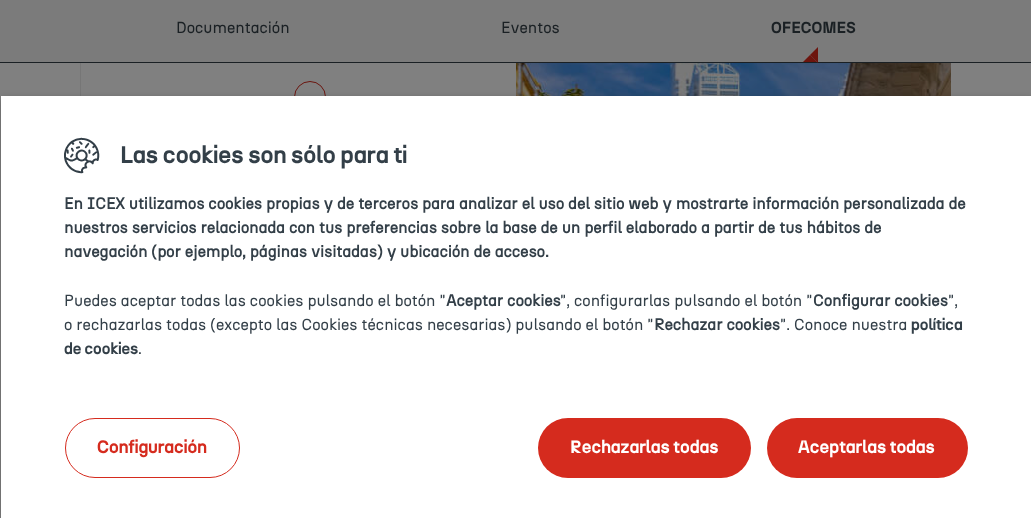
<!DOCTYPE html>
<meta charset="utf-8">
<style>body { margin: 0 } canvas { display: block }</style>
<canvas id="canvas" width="1031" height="518"></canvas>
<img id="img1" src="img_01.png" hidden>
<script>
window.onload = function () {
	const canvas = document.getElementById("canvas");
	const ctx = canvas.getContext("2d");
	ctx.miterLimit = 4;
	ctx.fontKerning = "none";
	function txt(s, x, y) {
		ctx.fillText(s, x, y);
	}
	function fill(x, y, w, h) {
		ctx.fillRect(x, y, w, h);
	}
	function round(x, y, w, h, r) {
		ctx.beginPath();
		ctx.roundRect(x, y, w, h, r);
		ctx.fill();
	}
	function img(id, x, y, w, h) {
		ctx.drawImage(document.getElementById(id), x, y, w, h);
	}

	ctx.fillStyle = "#808080";
	fill(0, 0, 1031, 518);
	ctx.fillStyle = "#7B7B7B";
	fill(0, 0, 1031, 62);
	ctx.fillStyle = "#1A2024";
	fill(0, 62, 1031, 1);
	ctx.fillStyle = "#6D150E";
	ctx.beginPath();
	ctx.moveTo(818, 47);
	ctx.lineTo(818, 63);
	ctx.lineTo(810, 55);
	ctx.closePath();
	ctx.fill();
	ctx.save();
	ctx.beginPath();
	ctx.rect(0, 0, 1031, 62);
	ctx.clip();
	ctx.beginPath();
	ctx.moveTo(818, 63);
	ctx.lineTo(802, 63);
	ctx.lineTo(810, 55);
	ctx.closePath();
	ctx.fill();
	ctx.restore();
	ctx.fillStyle = "#767676";
	fill(80, 63, 1, 33);
	ctx.beginPath();
	ctx.arc(310, 97, 15.5, 0, Math.PI * 2);
	ctx.strokeStyle = "#6B160F";
	ctx.stroke();
	img("img1", 516, 63, 435, 33);
	ctx.fillStyle = "rgba(0, 0, 0, 0.25)";
	ctx.filter = "blur(4px)";
	ctx.beginPath();
	ctx.rect(1, 99, 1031, 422);
	ctx.fill();
	ctx.filter = "none";
	ctx.fillStyle = "#FFFFFF";
	fill(1, 96, 1030, 422);
	ctx.beginPath();
	ctx.roundRect(65.5, 418.5, 174, 59, 29.5);
	ctx.strokeStyle = "#D52B1E";
	ctx.stroke();
	ctx.fillStyle = "#D52B1E";
	round(538, 418, 213, 60, 30);
	round(767, 418, 201, 60, 30);
	ctx.font = "16px 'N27'";
	ctx.fillStyle = "#1A2024";
	txt("Documentación", 176, 33);
	txt("Eventos", 501, 33);
	ctx.font = "bold 16px 'N27'";
	txt("OFECOMES", 771, 33);
	ctx.font = "40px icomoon";
	ctx.fillStyle = "#333F48";
	txt("󮦈", 64, 173);
	ctx.font = "bold 24px 'N27'";
	txt("Las cookies son sólo para ti", 120, 163);
	ctx.font = "bold 16px 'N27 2'";
	txt("En ICEX utilizamos cookies propias y de terceros para analizar el uso del sitio web y mostrarte información personalizada de", 64, 209);
	txt("nuestros servicios relacionada con tus preferencias sobre la base de un perfil elaborado a partir de tus hábitos de", 64, 233);
	txt("navegación (por ejemplo, páginas visitadas) y ubicación de acceso.", 64, 257);
	ctx.font = "16px 'N27'";
	txt("Puedes aceptar todas las cookies pulsando el botón \"", 64, 306);
	ctx.font = "bold 16px 'N27 2'";
	txt("Aceptar cookies", 446, 306);
	ctx.font = "16px 'N27'";
	txt("\", configurarlas pulsando el botón \"", 560, 306);
	ctx.font = "bold 16px 'N27 2'";
	txt("Configurar cookies", 813, 306);
	ctx.font = "16px 'N27'";
	txt("\",", 948, 306);
	txt("o rechazarlas todas (excepto las Cookies técnicas necesarias) pulsando el botón \"", 64, 330);
	ctx.font = "bold 16px 'N27 2'";
	txt("Rechazar cookies", 654, 330);
	ctx.font = "16px 'N27'";
	txt("\". Conoce nuestra", 780, 330);
	ctx.font = "bold 16px 'N27'";
	txt("política", 911, 330);
	txt("de cookies", 64, 354);
	ctx.font = "16px 'N27'";
	txt(".", 138, 354);
	ctx.font = "bold 18px 'N27'";
	ctx.fillStyle = "#D52B1E";
	txt("Configuración", 97, 453);
	ctx.fillStyle = "#FFFFFF";
	txt("Rechazarlas todas", 570, 453);
	txt("Aceptarlas todas", 798, 453);
};
</script>
